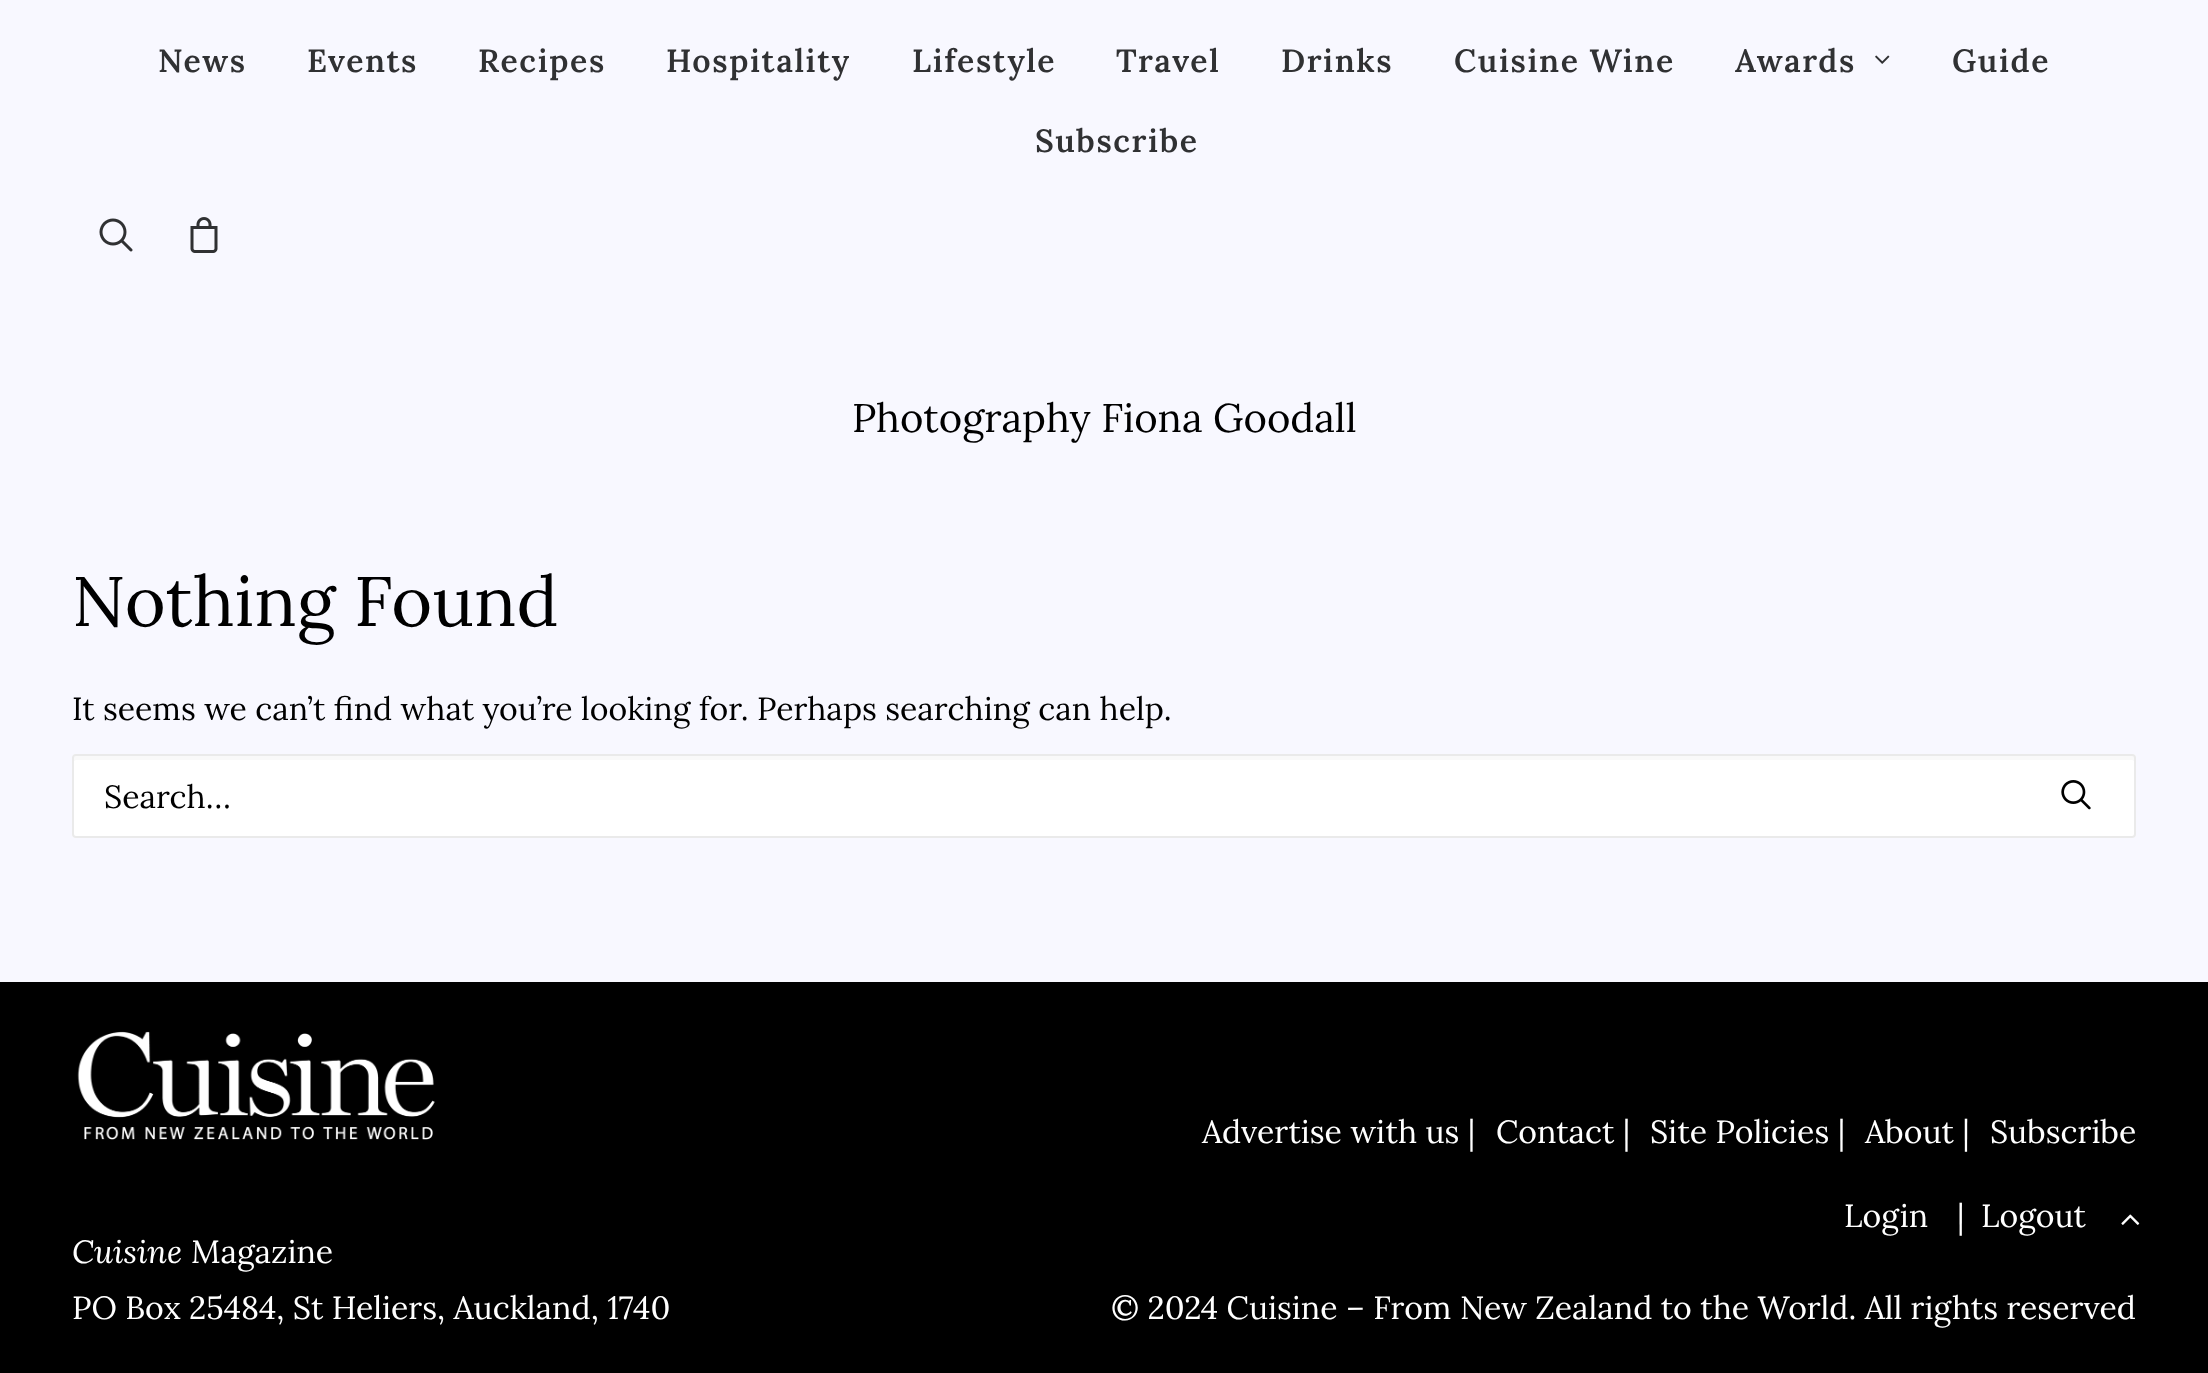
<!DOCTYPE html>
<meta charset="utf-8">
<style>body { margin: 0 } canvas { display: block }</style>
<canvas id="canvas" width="2208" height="1373"></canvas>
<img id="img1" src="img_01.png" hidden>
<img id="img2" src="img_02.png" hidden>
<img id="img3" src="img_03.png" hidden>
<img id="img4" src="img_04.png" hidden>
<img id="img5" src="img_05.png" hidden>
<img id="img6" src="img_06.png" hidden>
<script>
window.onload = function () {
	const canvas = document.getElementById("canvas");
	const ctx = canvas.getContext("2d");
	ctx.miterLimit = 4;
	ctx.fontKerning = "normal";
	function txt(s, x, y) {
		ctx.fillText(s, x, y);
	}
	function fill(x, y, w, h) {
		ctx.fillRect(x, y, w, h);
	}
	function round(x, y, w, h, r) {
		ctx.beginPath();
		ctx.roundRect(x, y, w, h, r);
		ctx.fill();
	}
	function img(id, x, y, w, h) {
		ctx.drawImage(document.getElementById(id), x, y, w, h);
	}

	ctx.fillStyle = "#F8F8FF";
	fill(0, 0, 2208, 1373);
	img("img1", 1875, 55, 15, 9);
	img("img2", 99, 218, 34, 34);
	img("img3", 190, 217, 28, 36);
	ctx.fillStyle = "#FFFFFF";
	round(72, 754, 2064, 84, 4);
	ctx.fillStyle = "#F9F9F9";
	ctx.beginPath();
	ctx.moveTo(76, 760);
	ctx.lineTo(2132, 760);
	ctx.bezierCurveTo(2133, 760, 2134, 761, 2134, 762);
	ctx.lineTo(2134, 758);
	ctx.bezierCurveTo(2134, 757, 2133, 756, 2132, 756);
	ctx.lineTo(76, 756);
	ctx.bezierCurveTo(75, 756, 74, 757, 74, 758);
	ctx.lineTo(74, 762);
	ctx.bezierCurveTo(74, 761, 75, 760, 76, 760);
	ctx.closePath();
	ctx.fill();
	ctx.beginPath();
	ctx.roundRect(73, 755, 2062, 82, 3);
	ctx.strokeStyle = "#EAEAEA";
	ctx.lineWidth = 2;
	ctx.stroke();
	img("img4", 2061, 780, 30, 30);
	ctx.fillStyle = "#000000";
	fill(0, 982, 2208, 391);
	img("img5", 77, 1031, 358, 109);
	img("img6", 2121, 1214, 19, 11);
	ctx.letterSpacing = "1.6px";
	ctx.font = "600 32px Lora";
	ctx.fillStyle = "#303133";
	txt("News", 158, 72);
	txt("Events", 307, 72);
	txt("Recipes", 478, 72);
	txt("Hospitality", 666, 72);
	txt("Lifestyle", 912, 72);
	txt("Travel", 1116, 72);
	txt("Drinks", 1281, 72);
	txt("Cuisine Wine", 1454, 72);
	txt("Awards", 1735, 72);
	txt("Guide", 1952, 72);
	txt("Subscribe", 1035, 152);
	ctx.letterSpacing = "0px";
	ctx.font = "40px Lora";
	ctx.fillStyle = "#000000";
	txt("Photography Fiona Goodall", 852, 432);
	ctx.font = "70px Lora";
	txt("Nothing Found", 72, 626);
	ctx.font = "32px Lora";
	txt("It seems we can’t find what you’re looking for. Perhaps searching can help.", 72, 720);
	txt("Search…", 104, 808);
	ctx.font = "italic 32px Lora";
	ctx.fillStyle = "#FFFFFF";
	txt("Cuisine", 72, 1263);
	ctx.font = "32px Lora";
	txt("Magazine", 191, 1263);
	txt("PO Box 25484, St Heliers, Auckland, 1740", 72, 1319);
	txt("Advertise with us |", 1202, 1143);
	txt("Contact |", 1496, 1143);
	txt("Site Policies |", 1650, 1143);
	txt("About |", 1865, 1143);
	txt("Subscribe", 1990, 1143);
	txt("Login", 1844, 1227);
	txt("|", 1957, 1227);
	txt("Logout", 1981, 1227);
	txt("© 2024 Cuisine – From New Zealand to the World. All rights reserved", 1111, 1319);
};
</script>
